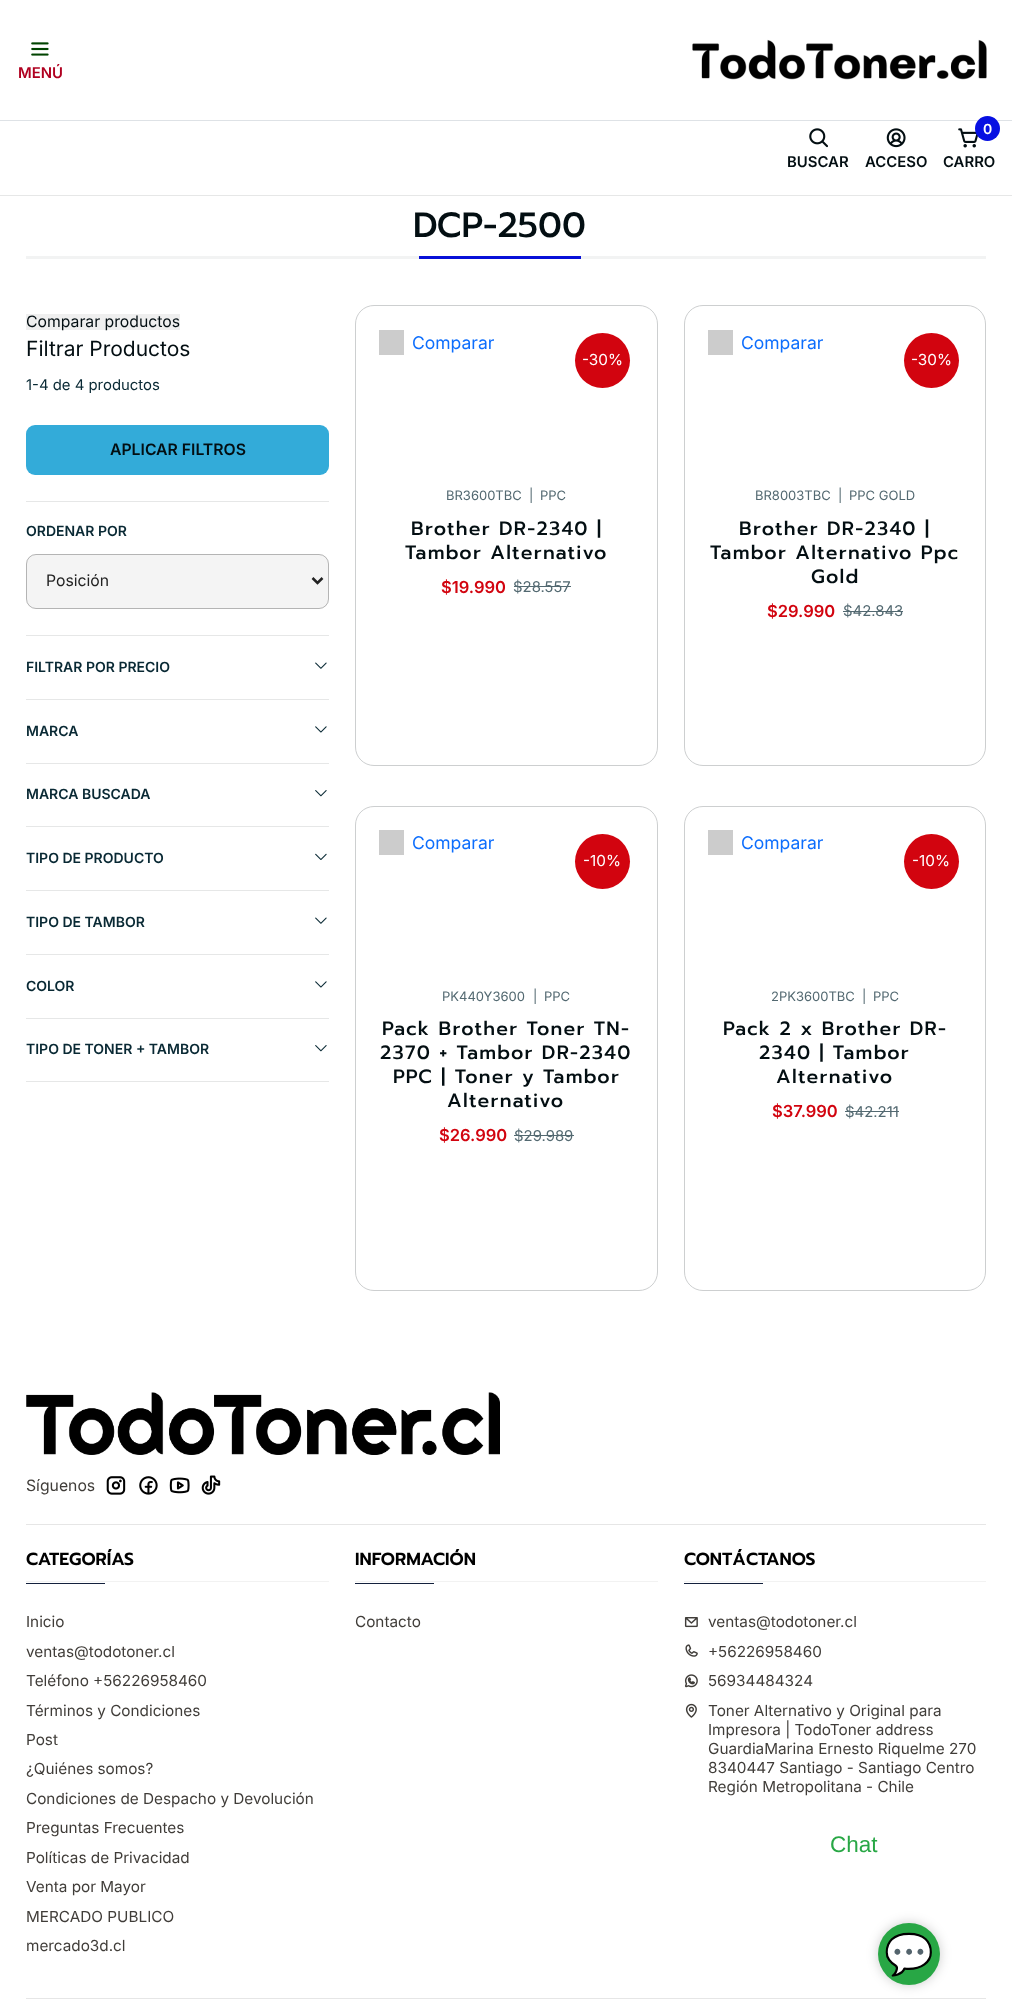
<!DOCTYPE html>
<meta charset="utf-8">
<style>body { margin: 0 } canvas { display: block }</style>
<canvas id="canvas" width="1012" height="2009"></canvas>
<img id="img1" src="img_01.png" hidden>
<img id="img2" src="img_02.png" hidden>
<img id="img3" src="img_03.png" hidden>
<img id="img4" src="img_04.png" hidden>
<img id="img5" src="img_05.png" hidden>
<img id="img6" src="img_06.png" hidden>
<img id="img7" src="img_07.png" hidden>
<img id="img8" src="img_08.png" hidden>
<img id="img9" src="img_09.png" hidden>
<img id="img10" src="img_10.png" hidden>
<img id="img11" src="img_11.png" hidden>
<img id="img12" src="img_12.png" hidden>
<img id="img13" src="img_13.png" hidden>
<img id="img14" src="img_14.png" hidden>
<img id="img15" src="img_15.png" hidden>
<img id="img16" src="img_16.png" hidden>
<img id="img17" src="img_17.png" hidden>
<img id="img18" src="img_18.png" hidden>
<script>
window.onload = function () {
	const canvas = document.getElementById("canvas");
	const ctx = canvas.getContext("2d");
	ctx.miterLimit = 4;
	ctx.fontKerning = "normal";
	function txt(s, x, y) {
		ctx.fillText(s, x, y);
	}
	function fill(x, y, w, h) {
		ctx.fillRect(x, y, w, h);
	}
	function round(x, y, w, h, r) {
		ctx.beginPath();
		ctx.roundRect(x, y, w, h, r);
		ctx.fill();
	}
	function img(id, x, y, w, h) {
		ctx.drawImage(document.getElementById(id), x, y, w, h);
	}

	ctx.fillStyle = "#FFFFFF";
	fill(0, 0, 1012, 2009);
	ctx.fillStyle = "#F2F3F3";
	fill(26, 256, 960, 3);
	ctx.fillStyle = "#E6E7E7";
	fill(0, 195, 1012, 1);
	img("img1", 31, 42, 18, 14);
	img("img2", 692, 39, 295, 41);
	ctx.fillStyle = "#DEE2E6";
	fill(0, 120, 1012, 1);
	img("img3", 809, 128, 19, 20);
	img("img4", 886, 128, 20, 20);
	img("img5", 958, 128, 20, 20);
	ctx.fillStyle = "#0710E2";
	ctx.beginPath();
	ctx.arc(987.5, 128.5, 12.5, 0, Math.PI * 2);
	ctx.fill();
	ctx.fillStyle = "#0710D8";
	fill(419, 256, 162, 3);
	ctx.fillStyle = "#EFEFEF";
	fill(26, 314, 154, 16);
	ctx.fillStyle = "#33ABD9";
	round(26, 425, 303, 50, 9);
	ctx.fillStyle = "#E6E7E7";
	fill(26, 501, 303, 1);
	ctx.fillStyle = "#F4F4F4";
	round(26, 554, 303, 55, 10);
	ctx.beginPath();
	ctx.roundRect(26.5, 554.5, 302, 54, 9.5);
	ctx.strokeStyle = "rgba(34, 34, 34, 0.3)";
	ctx.stroke();
	ctx.beginPath();
	ctx.moveTo(312.5, 578);
	ctx.lineTo(317.5, 583);
	ctx.lineTo(322.5, 578);
	ctx.strokeStyle = "#222222";
	ctx.lineWidth = 2.5;
	ctx.stroke();
	ctx.fillStyle = "#E6E7E7";
	fill(26, 635, 303, 1);
	img("img6", 315, 662, 12, 7);
	fill(26, 699, 303, 1);
	img("img7", 315, 726, 12, 7);
	fill(26, 763, 303, 1);
	img("img8", 315, 790, 12, 7);
	fill(26, 826, 303, 1);
	img("img9", 315, 853, 12, 7);
	fill(26, 890, 303, 1);
	img("img6", 315, 917, 12, 7);
	fill(26, 954, 303, 1);
	img("img7", 315, 981, 12, 7);
	fill(26, 1018, 303, 1);
	fill(26, 1081, 303, 1);
	img("img8", 315, 1045, 12, 7);
	ctx.beginPath();
	ctx.roundRect(355.5, 305.5, 302, 460, 18.5);
	ctx.strokeStyle = "#CDCFD0";
	ctx.lineWidth = 1;
	ctx.stroke();
	ctx.fillStyle = "#CCCCCC";
	fill(379, 330, 25, 25);
	ctx.fillStyle = "#D2040F";
	ctx.beginPath();
	ctx.arc(602.5, 360.5, 27.5, 0, Math.PI * 2);
	ctx.fill();
	ctx.fillStyle = "#536971";
	fill(514, 586, 57, 1);
	ctx.beginPath();
	ctx.roundRect(684.5, 305.5, 301, 460, 18.5);
	ctx.stroke();
	ctx.fillStyle = "#CCCCCC";
	fill(708, 330, 25, 25);
	ctx.fillStyle = "#D2040F";
	ctx.beginPath();
	ctx.arc(931.5, 360.5, 27.5, 0, Math.PI * 2);
	ctx.fill();
	ctx.fillStyle = "#536971";
	fill(843, 611, 60, 1);
	ctx.beginPath();
	ctx.roundRect(355.5, 806.5, 302, 484, 18.5);
	ctx.stroke();
	ctx.fillStyle = "#CCCCCC";
	fill(379, 830, 25, 25);
	ctx.fillStyle = "#D2040F";
	ctx.beginPath();
	ctx.arc(602.5, 861.5, 27.5, 0, Math.PI * 2);
	ctx.fill();
	ctx.fillStyle = "#536971";
	fill(514, 1135, 60, 1);
	ctx.beginPath();
	ctx.roundRect(684.5, 806.5, 301, 484, 18.5);
	ctx.stroke();
	ctx.fillStyle = "#CCCCCC";
	fill(708, 830, 25, 25);
	ctx.fillStyle = "#D2040F";
	ctx.beginPath();
	ctx.arc(931.5, 861.5, 27.5, 0, Math.PI * 2);
	ctx.fill();
	ctx.fillStyle = "#536971";
	fill(845, 1111, 54, 1);
	img("img10", 26, 1392, 474, 63);
	img("img11", 106, 1476, 20, 19);
	img("img12", 139, 1476, 19, 19);
	img("img13", 169, 1477, 21, 17);
	img("img14", 201, 1475, 20, 20);
	ctx.fillStyle = "#E6E6E6";
	fill(26, 1524, 960, 1);
	ctx.fillStyle = "#F2F2F2";
	fill(26, 1581, 303, 1);
	ctx.fillStyle = "#14213D";
	fill(26, 1583, 79, 1);
	ctx.fillStyle = "#F2F2F2";
	fill(355, 1581, 303, 1);
	ctx.fillStyle = "#14213D";
	fill(355, 1583, 79, 1);
	ctx.fillStyle = "#F2F2F2";
	fill(684, 1581, 302, 1);
	ctx.fillStyle = "#14213D";
	fill(684, 1583, 79, 1);
	img("img15", 684, 1617, 14, 11);
	img("img16", 685, 1644, 13, 13);
	img("img17", 684, 1674, 14, 14);
	img("img18", 685, 1703, 12, 15);
	ctx.fillStyle = "#E6E6E6";
	fill(26, 1998, 960, 1);
	ctx.fillStyle = "rgba(0, 0, 0, 0.2)";
	ctx.filter = "blur(6px)";
	ctx.beginPath();
	ctx.roundRect(878, 1923, 62, 62, 31);
	ctx.fill();
	ctx.filter = "none";
	ctx.fillStyle = "#28A745";
	ctx.beginPath();
	ctx.arc(909, 1954, 31, 0, Math.PI * 2);
	ctx.fill();
	ctx.font = "600 14.9px Inter";
	ctx.fillStyle = "#B00020";
	txt("MENÚ", 18, 78);
	ctx.fillStyle = "#030E12";
	txt("BUSCAR", 787, 167);
	txt("ACCESO", 865, 167);
	ctx.font = "600 14px Inter";
	ctx.fillStyle = "#FFFFFF";
	txt("0", 983, 134);
	ctx.font = "600 14.9px Inter";
	ctx.fillStyle = "#030E12";
	txt("CARRO", 943, 167);
	ctx.font = "500 35px Prompt";
	txt("DCP-2500", 413, 237);
	ctx.font = "15.75px Inter";
	txt("Comparar productos", 26, 327);
	ctx.font = "21px Inter";
	txt("Filtrar Productos", 26, 356);
	ctx.font = "14.9px Inter";
	ctx.fillStyle = "#092934";
	txt("1-4 de 4 productos", 26, 390);
	ctx.font = "600 15.75px Inter";
	ctx.fillStyle = "#030E12";
	txt("APLICAR FILTROS", 110, 455);
	ctx.font = "600 14px Inter";
	ctx.fillStyle = "#092934";
	txt("ORDENAR POR", 26, 536);
	ctx.font = "15.75px Inter";
	ctx.fillStyle = "#222222";
	txt("Posición", 46, 586);
	ctx.font = "600 14px Inter";
	ctx.fillStyle = "#092934";
	txt("FILTRAR POR PRECIO", 26, 672);
	txt("MARCA", 26, 736);
	txt("MARCA BUSCADA", 26, 799);
	txt("TIPO DE PRODUCTO", 26, 863);
	txt("TIPO DE TAMBOR", 26, 927);
	txt("COLOR", 26, 991);
	txt("TIPO DE TONER + TAMBOR", 26, 1054);
	ctx.font = "17.5px Inter";
	ctx.fillStyle = "#0D6EFD";
	txt("Comparar", 412, 349);
	ctx.font = "15.3px Inter";
	ctx.fillStyle = "#FFFFFF";
	txt("-30%", 582, 365);
	ctx.font = "13px Inter";
	ctx.fillStyle = "#536971";
	txt("BR3600TBC", 446, 500);
	txt("|", 529, 500);
	txt("PPC", 540, 500);
	ctx.letterSpacing = "1.25px";
	ctx.font = "500 19.25px Prompt";
	ctx.fillStyle = "#030E12";
	txt("Brother DR-2340 |", 411, 535);
	txt("Tambor Alternativo", 405, 559);
	ctx.letterSpacing = "0px";
	ctx.font = "600 16.5px Inter";
	ctx.fillStyle = "#D2040F";
	txt("$19.990", 441, 593);
	ctx.font = "14.9px Inter";
	ctx.fillStyle = "#536971";
	txt("$28.557", 513, 592);
	ctx.font = "17.5px Inter";
	ctx.fillStyle = "#0D6EFD";
	txt("Comparar", 741, 349);
	ctx.font = "15.3px Inter";
	ctx.fillStyle = "#FFFFFF";
	txt("-30%", 911, 365);
	ctx.font = "13px Inter";
	ctx.fillStyle = "#536971";
	txt("BR8003TBC", 755, 500);
	txt("|", 838, 500);
	txt("PPC GOLD", 849, 500);
	ctx.letterSpacing = "1.25px";
	ctx.font = "500 19.25px Prompt";
	ctx.fillStyle = "#030E12";
	txt("Brother DR-2340 |", 739, 535);
	txt("Tambor Alternativo Ppc", 710, 559);
	txt("Gold", 811, 583);
	ctx.letterSpacing = "0px";
	ctx.font = "600 16.5px Inter";
	ctx.fillStyle = "#D2040F";
	txt("$29.990", 767, 617);
	ctx.font = "14.9px Inter";
	ctx.fillStyle = "#536971";
	txt("$42.843", 843, 616);
	ctx.font = "17.5px Inter";
	ctx.fillStyle = "#0D6EFD";
	txt("Comparar", 412, 849);
	ctx.font = "15.3px Inter";
	ctx.fillStyle = "#FFFFFF";
	txt("-10%", 583, 866);
	ctx.font = "13px Inter";
	ctx.fillStyle = "#536971";
	txt("PK440Y3600", 442, 1001);
	txt("|", 533, 1001);
	txt("PPC", 544, 1001);
	ctx.letterSpacing = "1.25px";
	ctx.font = "500 19.25px Prompt";
	ctx.fillStyle = "#030E12";
	txt("Pack Brother Toner TN-", 382, 1035);
	txt("2370 + Tambor DR-2340", 380, 1059);
	txt("PPC | Toner y Tambor", 393, 1083);
	txt("Alternativo", 447, 1107);
	ctx.letterSpacing = "0px";
	ctx.font = "600 16.5px Inter";
	ctx.fillStyle = "#D2040F";
	txt("$26.990", 439, 1141);
	ctx.font = "14.9px Inter";
	ctx.fillStyle = "#536971";
	txt("$29.989", 514, 1141);
	ctx.font = "17.5px Inter";
	ctx.fillStyle = "#0D6EFD";
	txt("Comparar", 741, 849);
	ctx.font = "15.3px Inter";
	ctx.fillStyle = "#FFFFFF";
	txt("-10%", 912, 866);
	ctx.font = "13px Inter";
	ctx.fillStyle = "#536971";
	txt("2PK3600TBC", 771, 1001);
	txt("|", 862, 1001);
	txt("PPC", 873, 1001);
	ctx.letterSpacing = "1.25px";
	ctx.font = "500 19.25px Prompt";
	ctx.fillStyle = "#030E12";
	txt("Pack 2 x Brother DR-", 723, 1035);
	txt("2340 | Tambor", 759, 1059);
	txt("Alternativo", 776, 1083);
	ctx.letterSpacing = "0px";
	ctx.font = "600 16.5px Inter";
	ctx.fillStyle = "#D2040F";
	txt("$37.990", 772, 1117);
	ctx.font = "14.9px Inter";
	ctx.fillStyle = "#536971";
	txt("$42.211", 845, 1117);
	ctx.font = "15.75px Inter";
	ctx.fillStyle = "#403D39";
	txt("Síguenos", 26, 1491);
	ctx.font = "600 17.5px Prompt";
	ctx.fillStyle = "#000000";
	txt("CATEGORÍAS", 26, 1565);
	ctx.font = "15.3px Inter";
	ctx.fillStyle = "#403D39";
	txt("Inicio", 26, 1627);
	txt("ventas@todotoner.cl", 26, 1657);
	txt("Teléfono +56226958460", 26, 1686);
	txt("Términos y Condiciones", 26, 1716);
	txt("Post", 26, 1745);
	txt("¿Quiénes somos?", 26, 1774);
	txt("Condiciones de Despacho y Devolución", 26, 1804);
	txt("Preguntas Frecuentes", 26, 1833);
	txt("Políticas de Privacidad", 26, 1863);
	txt("Venta por Mayor", 26, 1892);
	txt("MERCADO PUBLICO", 26, 1922);
	txt("mercado3d.cl", 26, 1951);
	ctx.font = "600 17.5px Prompt";
	ctx.fillStyle = "#000000";
	txt("INFORMACIÓN", 355, 1565);
	ctx.font = "15.3px Inter";
	ctx.fillStyle = "#403D39";
	txt("Contacto", 355, 1627);
	ctx.font = "600 17.5px Prompt";
	ctx.fillStyle = "#000000";
	txt("CONTÁCTANOS", 684, 1565);
	ctx.font = "15.3px Inter";
	ctx.fillStyle = "#403D39";
	txt("ventas@todotoner.cl", 708, 1627);
	txt("+56226958460", 708, 1657);
	txt("56934484324", 708, 1686);
	txt("Toner Alternativo y Original para", 708, 1716);
	txt("Impresora | TodoToner address", 708, 1735);
	txt("GuardiaMarina Ernesto Riquelme 270", 708, 1754);
	txt("8340447 Santiago - Santiago Centro", 708, 1773);
	txt("Región Metropolitana - Chile", 708, 1792);
	ctx.font = "22.5px Liberation Sans";
	ctx.fillStyle = "#28A745";
	txt("Chat", 830, 1852);
	ctx.font = "40px Noto Color Emoji";
	ctx.fillStyle = "#FFFFFF";
	txt("💬", 884, 1968);
};
</script>
